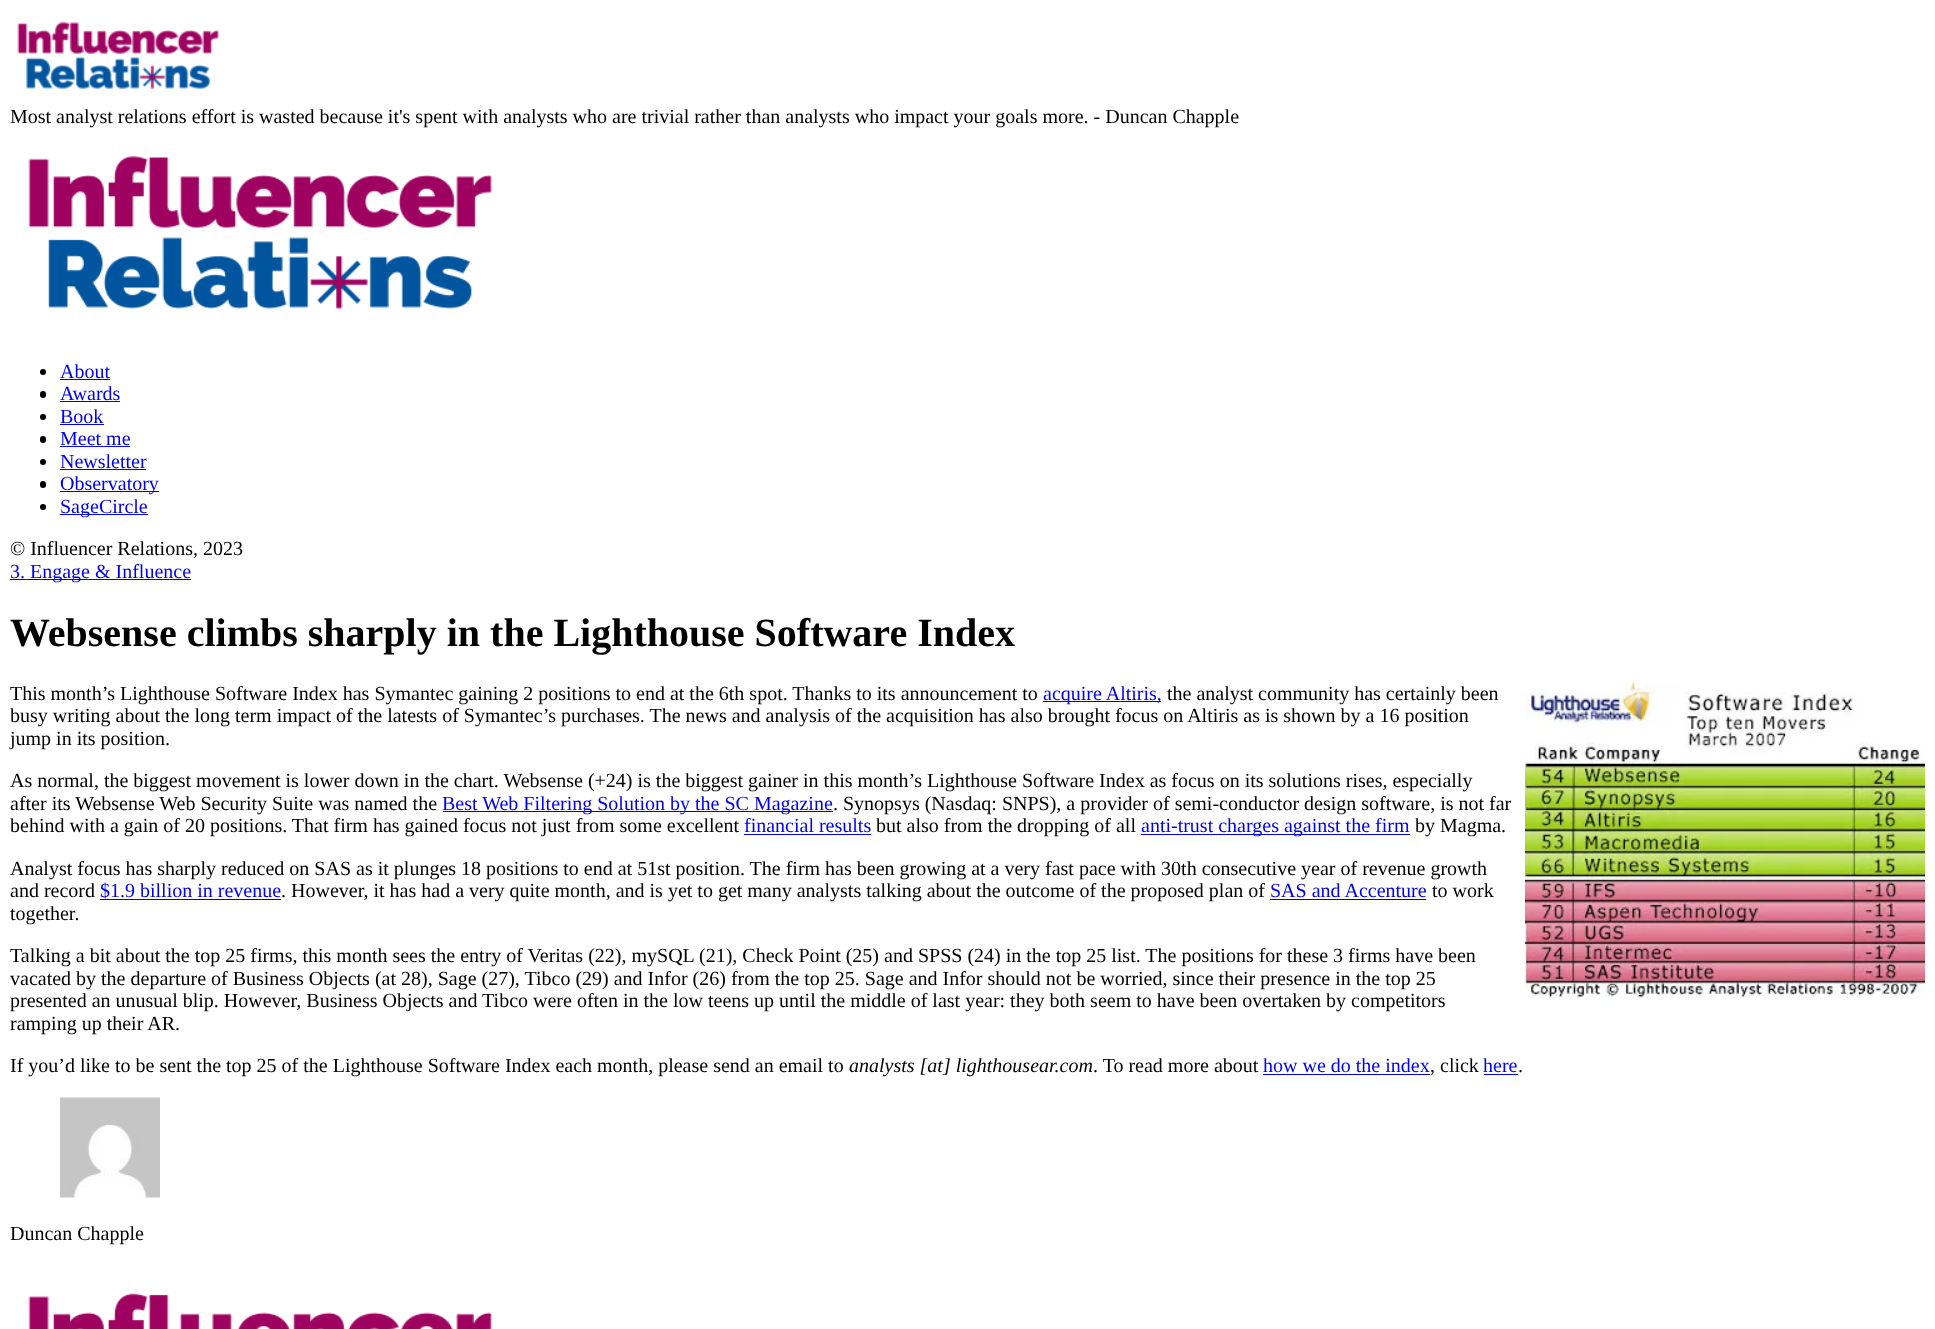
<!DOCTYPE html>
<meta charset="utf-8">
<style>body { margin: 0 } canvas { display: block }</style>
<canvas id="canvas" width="1935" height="1329"></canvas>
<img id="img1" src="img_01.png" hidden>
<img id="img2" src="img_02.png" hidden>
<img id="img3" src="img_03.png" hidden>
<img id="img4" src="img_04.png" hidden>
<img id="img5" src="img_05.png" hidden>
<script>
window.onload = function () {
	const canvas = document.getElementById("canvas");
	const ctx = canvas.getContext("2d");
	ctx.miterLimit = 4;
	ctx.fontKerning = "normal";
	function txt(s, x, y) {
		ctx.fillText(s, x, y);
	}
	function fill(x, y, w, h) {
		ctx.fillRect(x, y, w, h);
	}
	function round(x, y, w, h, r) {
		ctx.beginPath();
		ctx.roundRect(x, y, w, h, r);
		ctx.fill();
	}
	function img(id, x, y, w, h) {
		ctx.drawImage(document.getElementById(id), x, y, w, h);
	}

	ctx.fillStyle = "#FFFFFF";
	fill(0, 0, 1935, 1329);
	img("img1", 17, 21, 202, 69);
	img("img2", 28, 156, 464, 153);
	ctx.fillStyle = "#000000";
	ctx.beginPath();
	ctx.arc(43, 372, 3, 0, Math.PI * 2);
	ctx.fill();
	ctx.fillStyle = "#0000EE";
	fill(60, 379, 50, 1);
	ctx.fillStyle = "#000000";
	round(40, 391, 6, 7, 3);
	ctx.fillStyle = "#0000EE";
	fill(60, 401, 60, 1);
	ctx.fillStyle = "#000000";
	ctx.beginPath();
	ctx.arc(43, 417, 3, 0, Math.PI * 2);
	ctx.fill();
	ctx.fillStyle = "#0000EE";
	fill(60, 424, 44, 1);
	ctx.fillStyle = "#000000";
	round(40, 436, 6, 7, 3);
	ctx.fillStyle = "#0000EE";
	fill(60, 446, 70, 1);
	ctx.fillStyle = "#000000";
	ctx.beginPath();
	ctx.arc(43, 462, 3, 0, Math.PI * 2);
	ctx.fill();
	ctx.fillStyle = "#0000EE";
	fill(60, 469, 86, 1);
	ctx.fillStyle = "#000000";
	round(40, 481, 6, 7, 3);
	ctx.fillStyle = "#0000EE";
	fill(60, 491, 99, 1);
	ctx.fillStyle = "#000000";
	ctx.beginPath();
	ctx.arc(43, 507, 3, 0, Math.PI * 2);
	ctx.fill();
	ctx.fillStyle = "#0000EE";
	fill(60, 514, 88, 1);
	fill(10, 579, 181, 1);
	fill(1043, 701, 118, 1);
	img("img3", 1525, 682, 400, 317);
	fill(443, 811, 390, 1);
	fill(744, 834, 127, 1);
	fill(1141, 834, 269, 1);
	fill(100, 899, 181, 1);
	fill(1270, 899, 156, 1);
	fill(1263, 1074, 167, 1);
	fill(1484, 1074, 34, 1);
	img("img4", 60, 1097, 100, 101);
	img("img5", 28, 1293, 464, 36);
	ctx.font = "20px Liberation Serif";
	ctx.fillStyle = "#000000";
	txt("Most analyst relations effort is wasted because it's spent with analysts who are trivial rather than analysts who impact your goals more. - Duncan Chapple", 10, 123);
	ctx.fillStyle = "#0000EE";
	txt("About", 60, 378);
	txt("Awards", 60, 400);
	txt("Book", 60, 423);
	txt("Meet me", 60, 445);
	txt("Newsletter", 60, 468);
	txt("Observatory", 60, 490);
	txt("SageCircle", 60, 513);
	ctx.fillStyle = "#000000";
	txt("© Influencer Relations, 2023", 10, 555);
	ctx.fillStyle = "#0000EE";
	txt("3. Engage & Influence", 10, 578);
	ctx.font = "bold 40px Liberation Serif";
	ctx.fillStyle = "#000000";
	txt("Websense climbs sharply in the Lighthouse Software Index", 10, 646);
	ctx.font = "20px Liberation Serif";
	txt("This month’s Lighthouse Software Index has Symantec gaining 2 positions to end at the 6th spot. Thanks to its announcement to", 10, 700);
	ctx.fillStyle = "#0000EE";
	txt("acquire Altiris,", 1043, 700);
	ctx.fillStyle = "#000000";
	txt("the analyst community has certainly been", 1167, 700);
	txt("busy writing about the long term impact of the latests of Symantec’s purchases. The news and analysis of the acquisition has also brought focus on Altiris as is shown by a 16 position", 10, 722);
	txt("jump in its position.", 10, 745);
	txt("As normal, the biggest movement is lower down in the chart. Websense (+24) is the biggest gainer in this month’s Lighthouse Software Index as focus on its solutions rises, especially", 10, 787);
	txt("after its Websense Web Security Suite was named the", 10, 810);
	ctx.fillStyle = "#0000EE";
	txt("Best Web Filtering Solution by the SC Magazine", 442, 810);
	ctx.fillStyle = "#000000";
	txt(". Synopsys (Nasdaq: SNPS), a provider of semi-conductor design software, is not far", 833, 810);
	txt("behind with a gain of 20 positions. That firm has gained focus not just from some excellent", 10, 832);
	ctx.fillStyle = "#0000EE";
	txt("financial results", 744, 832);
	ctx.fillStyle = "#000000";
	txt("but also from the dropping of all", 876, 832);
	ctx.fillStyle = "#0000EE";
	txt("anti-trust charges against the firm", 1141, 832);
	ctx.fillStyle = "#000000";
	txt("by Magma.", 1415, 832);
	txt("Analyst focus has sharply reduced on SAS as it plunges 18 positions to end at 51st position. The firm has been growing at a very fast pace with 30th consecutive year of revenue growth", 10, 875);
	txt("and record", 10, 897);
	ctx.fillStyle = "#0000EE";
	txt("$1.9 billion in revenue", 100, 897);
	ctx.fillStyle = "#000000";
	txt(". However, it has had a very quite month, and is yet to get many analysts talking about the outcome of the proposed plan of", 281, 897);
	ctx.fillStyle = "#0000EE";
	txt("SAS and Accenture", 1270, 897);
	ctx.fillStyle = "#000000";
	txt("to work", 1432, 897);
	txt("together.", 10, 920);
	txt("Talking a bit about the top 25 firms, this month sees the entry of Veritas (22), mySQL (21), Check Point (25) and SPSS (24) in the top 25 list. The positions for these 3 firms have been", 10, 962);
	txt("vacated by the departure of Business Objects (at 28), Sage (27), Tibco (29) and Infor (26) from the top 25. Sage and Infor should not be worried, since their presence in the top 25", 10, 985);
	txt("presented an unusual blip. However, Business Objects and Tibco were often in the low teens up until the middle of last year: they both seem to have been overtaken by competitors", 10, 1007);
	txt("ramping up their AR.", 10, 1030);
	txt("If you’d like to be sent the top 25 of the Lighthouse Software Index each month, please send an email to", 10, 1072);
	ctx.font = "italic 20px Liberation Serif";
	txt("analysts [at] lighthousear.com", 849, 1072);
	ctx.font = "20px Liberation Serif";
	txt(". To read more about", 1093, 1072);
	ctx.fillStyle = "#0000EE";
	txt("how we do the index", 1263, 1072);
	ctx.fillStyle = "#000000";
	txt(", click", 1430, 1072);
	ctx.fillStyle = "#0000EE";
	txt("here", 1483, 1072);
	ctx.fillStyle = "#000000";
	txt(".", 1518, 1072);
	txt("Duncan Chapple", 10, 1240);
};
</script>
